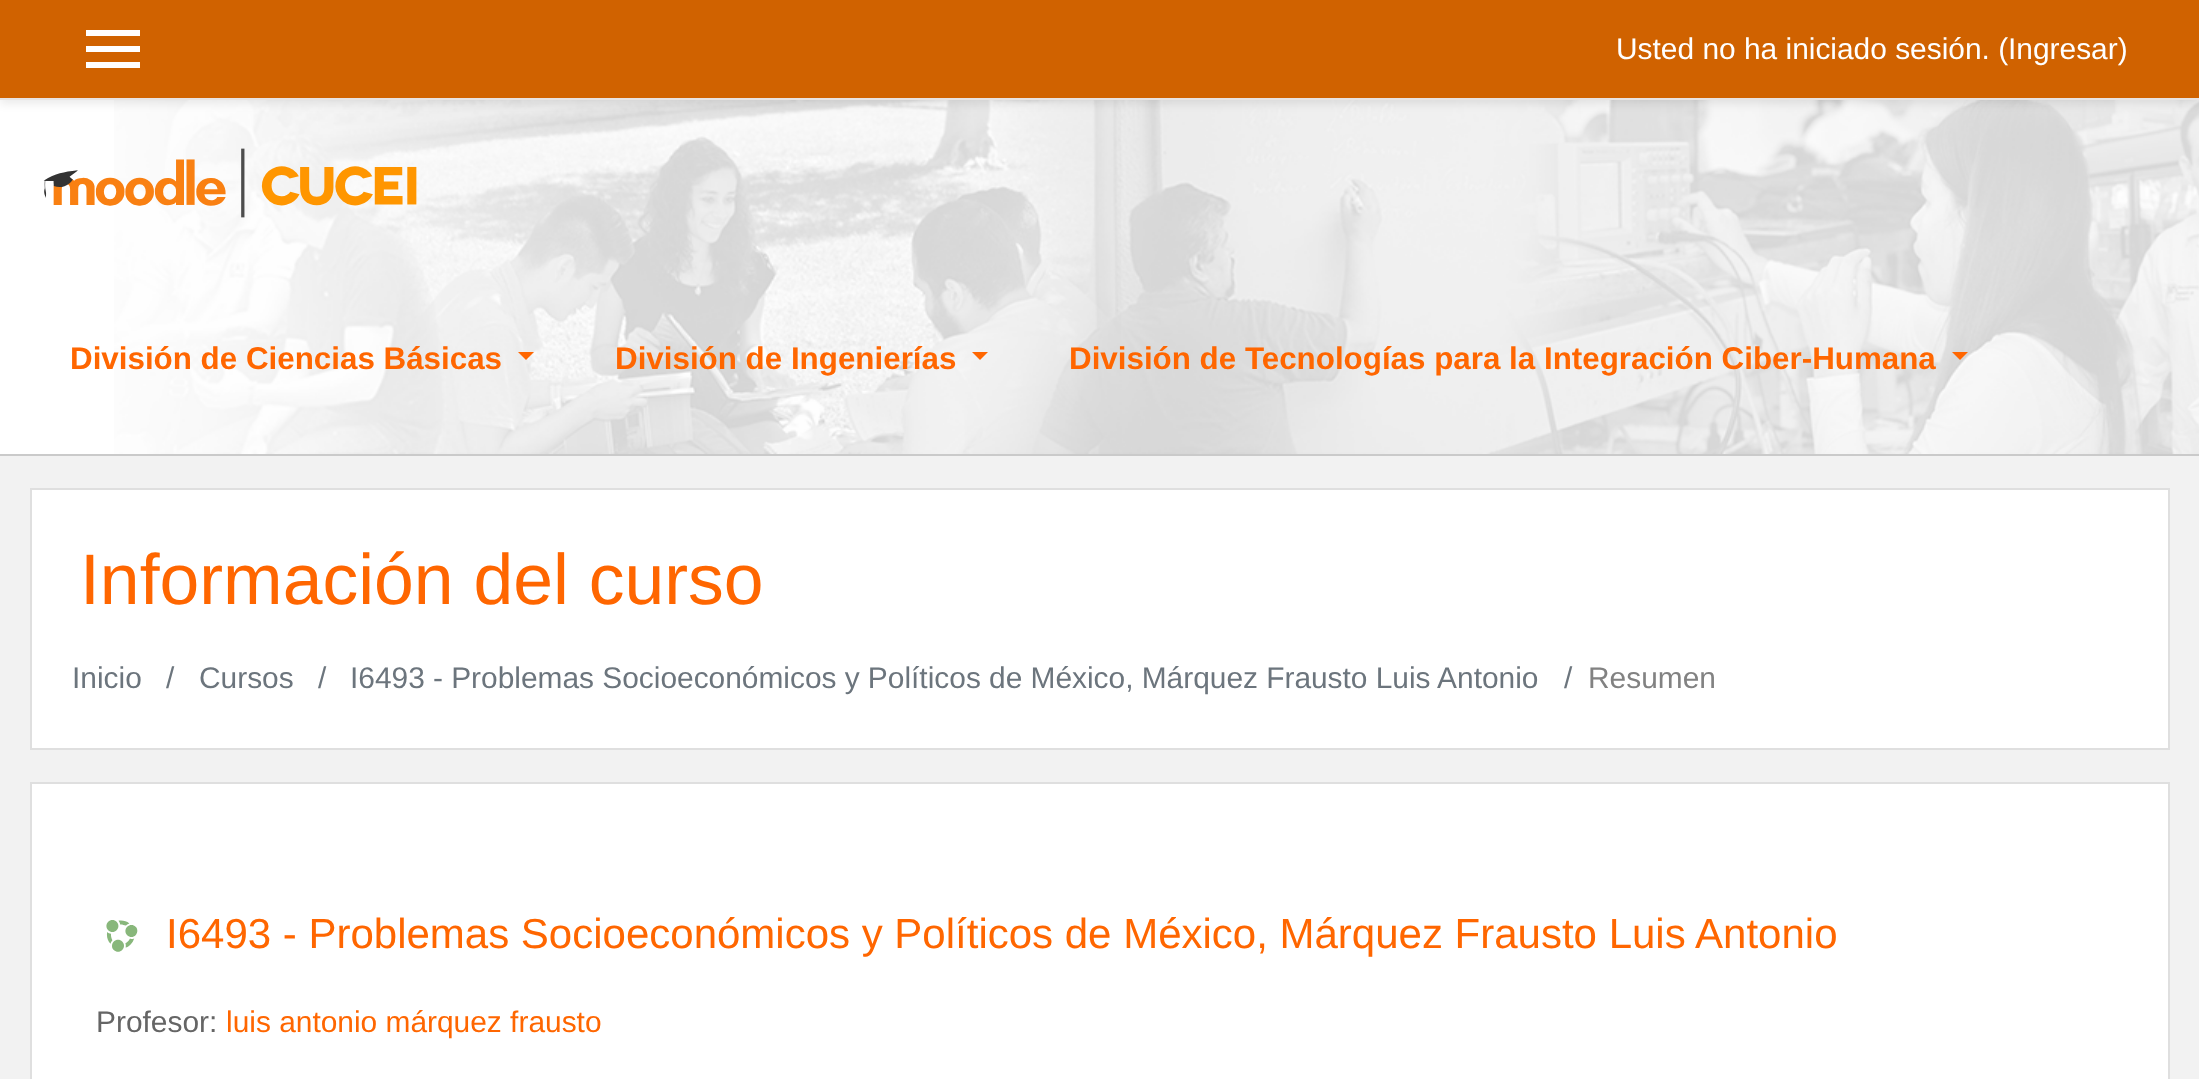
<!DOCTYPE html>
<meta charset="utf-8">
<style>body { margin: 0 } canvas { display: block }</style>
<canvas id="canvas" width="2199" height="1079"></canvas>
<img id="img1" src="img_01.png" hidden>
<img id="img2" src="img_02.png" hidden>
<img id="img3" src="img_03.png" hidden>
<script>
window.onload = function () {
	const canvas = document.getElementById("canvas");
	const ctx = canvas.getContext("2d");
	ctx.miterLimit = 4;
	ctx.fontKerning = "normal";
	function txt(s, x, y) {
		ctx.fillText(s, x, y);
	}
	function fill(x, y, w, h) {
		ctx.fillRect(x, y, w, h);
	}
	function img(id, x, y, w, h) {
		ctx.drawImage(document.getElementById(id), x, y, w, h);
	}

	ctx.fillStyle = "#F2F2F2";
	fill(0, 0, 2199, 1079);
	ctx.fillStyle = "#FFFFFF";
	fill(0, 100, 114, 354);
	img("img1", 114, 100, 2085, 354);
	ctx.fillStyle = "rgba(0, 0, 0, 0.08)";
	ctx.filter = "blur(4px)";
	ctx.beginPath();
	ctx.rect(0, 4, 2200, 100);
	ctx.fill();
	ctx.filter = "none";
	ctx.fillStyle = "#D06200";
	fill(0, 0, 2199, 98);
	ctx.fillStyle = "#E8E3E3";
	fill(0, 98, 2199, 2);
	ctx.fillStyle = "#FFFFFF";
	fill(86, 30, 54, 6);
	fill(86, 46, 54, 6);
	fill(86, 62, 54, 6);
	ctx.fillStyle = "#CACACA";
	fill(0, 454, 2199, 2);
	img("img2", 43, 148, 374, 70);
	ctx.fillStyle = "#FF6600";
	ctx.beginPath();
	ctx.moveTo(518, 352);
	ctx.lineTo(534, 352);
	ctx.lineTo(526, 360);
	ctx.closePath();
	ctx.fill();
	ctx.beginPath();
	ctx.moveTo(972, 352);
	ctx.lineTo(988, 352);
	ctx.lineTo(980, 360);
	ctx.closePath();
	ctx.fill();
	ctx.beginPath();
	ctx.moveTo(1952, 352);
	ctx.lineTo(1968, 352);
	ctx.lineTo(1960, 360);
	ctx.closePath();
	ctx.fill();
	ctx.fillStyle = "#FFFFFF";
	ctx.beginPath();
	ctx.rect(31, 489, 2138, 260);
	ctx.fill();
	ctx.strokeStyle = "#DFDFDF";
	ctx.lineWidth = 2;
	ctx.stroke();
	ctx.beginPath();
	ctx.rect(31, 783, 2138, 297);
	ctx.fill();
	ctx.stroke();
	img("img3", 106, 920, 32, 32);
	ctx.font = "29.9px Liberation Sans";
	txt("Usted no ha iniciado sesión. (", 1616, 59);
	txt("Ingresar)", 2008, 59);
	ctx.font = "bold 31.35px Liberation Sans";
	ctx.fillStyle = "#FF6600";
	txt("División de Ciencias Básicas", 70, 369);
	txt("División de Ingenierías", 615, 369);
	txt("División de Tecnologías para la Integración Ciber-Humana", 1069, 369);
	ctx.font = "71.5px Liberation Sans";
	txt("Información del curso", 80, 604);
	ctx.font = "29.9px Liberation Sans";
	ctx.fillStyle = "#6C757D";
	txt("Inicio", 72, 688);
	txt("/", 166, 688);
	txt("Cursos", 199, 688);
	txt("/", 318, 688);
	ctx.wordSpacing = "-0.1px";
	txt("I6493 - Problemas Socioeconómicos y Políticos de México, Márquez Frausto Luis Antonio", 350, 688);
	ctx.wordSpacing = "0px";
	txt("/", 1564, 688);
	ctx.fillStyle = "#828282";
	txt("Resumen", 1588, 688);
	ctx.font = "42px Liberation Sans";
	ctx.fillStyle = "#FF6600";
	txt("I6493 - Problemas Socioeconómicos y Políticos de México, Márquez Frausto Luis Antonio", 166, 948);
	ctx.font = "29.9px Liberation Sans";
	ctx.fillStyle = "#656565";
	txt("Profesor:", 96, 1032);
	ctx.fillStyle = "#FF6600";
	txt("luis antonio márquez frausto", 226, 1032);
};
</script>
